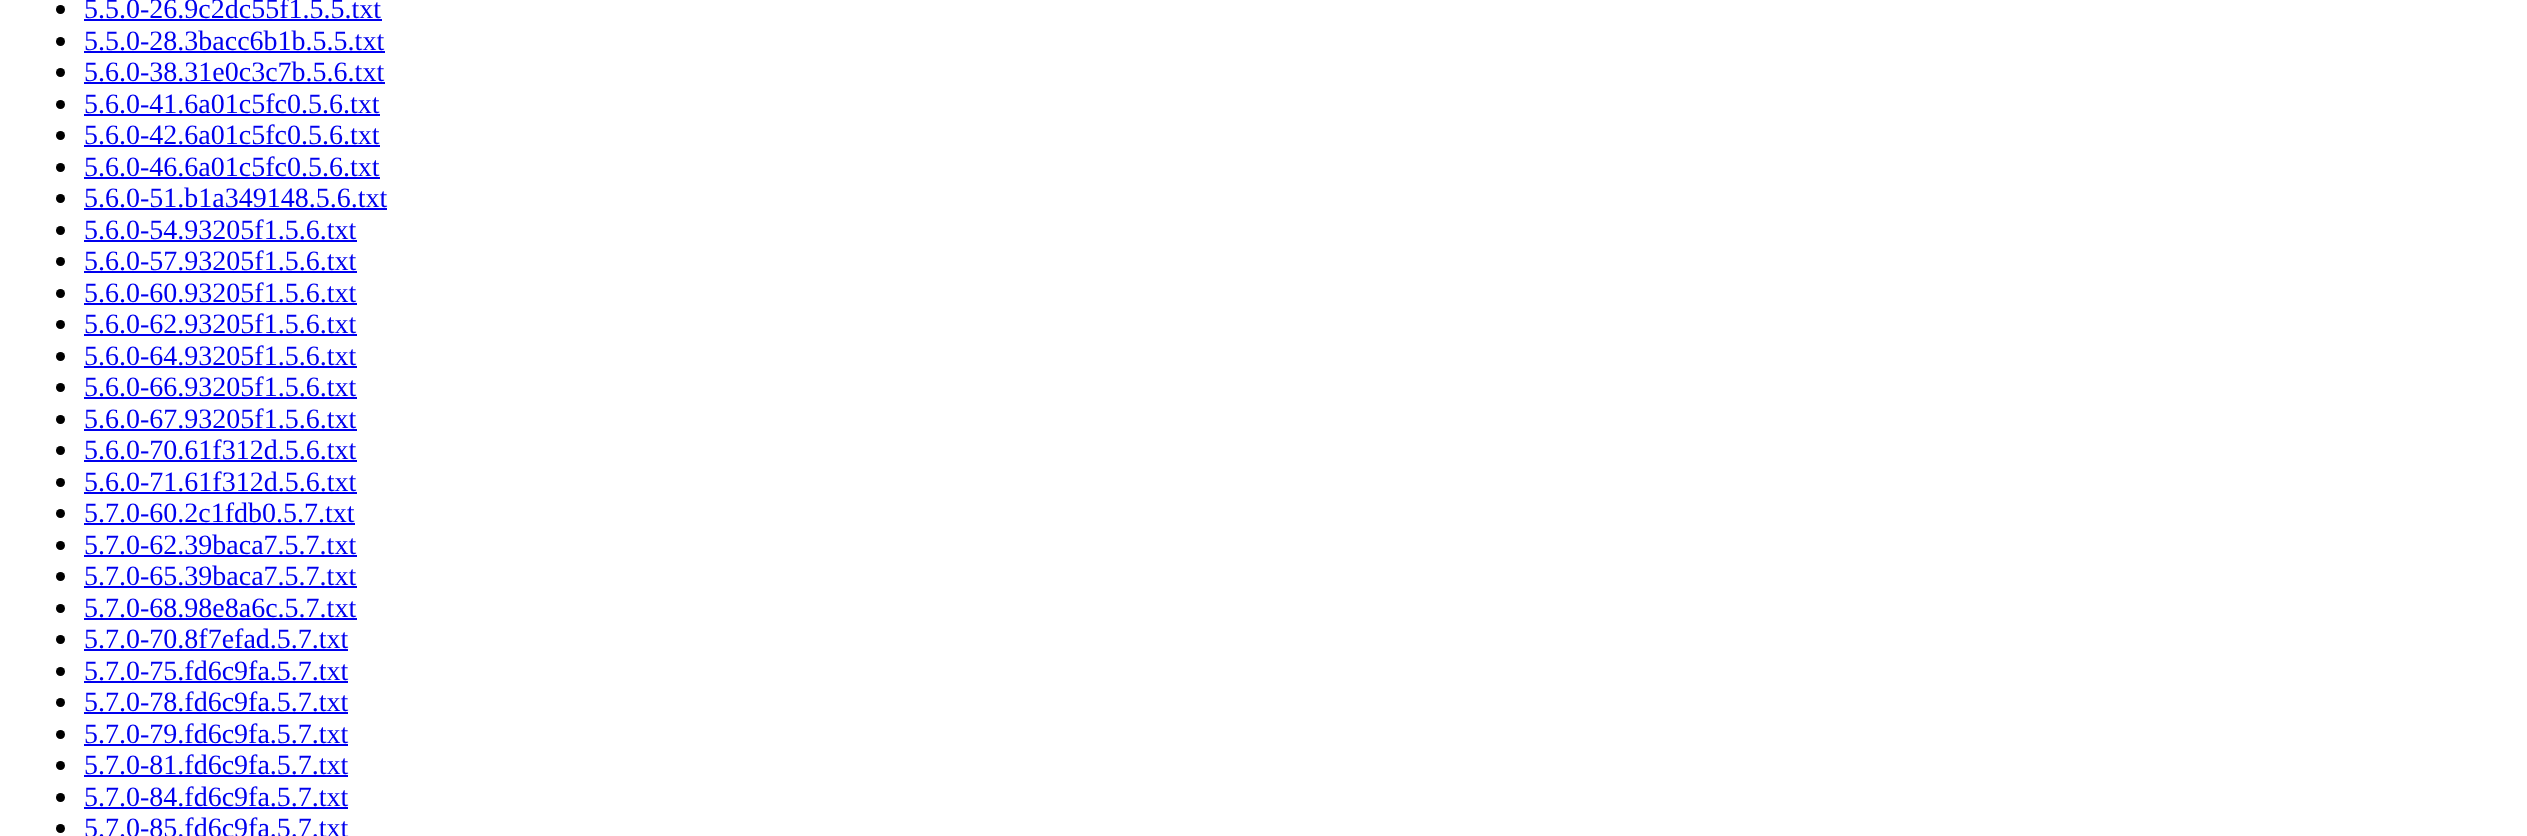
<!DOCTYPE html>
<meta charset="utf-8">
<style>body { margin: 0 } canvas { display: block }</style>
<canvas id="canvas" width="2527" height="836"></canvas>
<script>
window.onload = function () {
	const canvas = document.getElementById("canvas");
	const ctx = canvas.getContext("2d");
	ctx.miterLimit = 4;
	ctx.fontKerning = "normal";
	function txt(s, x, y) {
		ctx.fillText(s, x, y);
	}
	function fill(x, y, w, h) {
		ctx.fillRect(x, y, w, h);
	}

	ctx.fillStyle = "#FFFFFF";
	fill(0, 0, 2527, 836);
	ctx.fillStyle = "#000000";
	ctx.beginPath();
	ctx.arc(60.5, 9.5, 4.5, 0, Math.PI * 2);
	ctx.fill();
	ctx.fillStyle = "#0000EE";
	fill(84, 19, 298, 2);
	ctx.fillStyle = "#000000";
	ctx.beginPath();
	ctx.arc(60.5, 41.5, 4.5, 0, Math.PI * 2);
	ctx.fill();
	ctx.fillStyle = "#0000EE";
	fill(84, 51, 301, 2);
	ctx.fillStyle = "#000000";
	ctx.beginPath();
	ctx.arc(60.5, 72.5, 4.5, 0, Math.PI * 2);
	ctx.fill();
	ctx.fillStyle = "#0000EE";
	fill(84, 82, 301, 2);
	ctx.fillStyle = "#000000";
	ctx.beginPath();
	ctx.arc(60.5, 104.5, 4.5, 0, Math.PI * 2);
	ctx.fill();
	ctx.fillStyle = "#0000EE";
	fill(84, 114, 296, 2);
	ctx.fillStyle = "#000000";
	ctx.beginPath();
	ctx.arc(60.5, 135.5, 4.5, 0, Math.PI * 2);
	ctx.fill();
	ctx.fillStyle = "#0000EE";
	fill(84, 145, 296, 2);
	ctx.fillStyle = "#000000";
	ctx.beginPath();
	ctx.arc(60.5, 167.5, 4.5, 0, Math.PI * 2);
	ctx.fill();
	ctx.fillStyle = "#0000EE";
	fill(84, 177, 296, 2);
	ctx.fillStyle = "#000000";
	ctx.beginPath();
	ctx.arc(60.5, 198.5, 4.5, 0, Math.PI * 2);
	ctx.fill();
	ctx.fillStyle = "#0000EE";
	fill(84, 208, 303, 2);
	ctx.fillStyle = "#000000";
	ctx.beginPath();
	ctx.arc(60.5, 230.5, 4.5, 0, Math.PI * 2);
	ctx.fill();
	ctx.fillStyle = "#0000EE";
	fill(84, 240, 273, 2);
	ctx.fillStyle = "#000000";
	ctx.beginPath();
	ctx.arc(60.5, 261.5, 4.5, 0, Math.PI * 2);
	ctx.fill();
	ctx.fillStyle = "#0000EE";
	fill(84, 271, 273, 2);
	ctx.fillStyle = "#000000";
	ctx.beginPath();
	ctx.arc(60.5, 293.5, 4.5, 0, Math.PI * 2);
	ctx.fill();
	ctx.fillStyle = "#0000EE";
	fill(84, 303, 273, 2);
	ctx.fillStyle = "#000000";
	ctx.beginPath();
	ctx.arc(60.5, 324.5, 4.5, 0, Math.PI * 2);
	ctx.fill();
	ctx.fillStyle = "#0000EE";
	fill(84, 334, 273, 2);
	ctx.fillStyle = "#000000";
	ctx.beginPath();
	ctx.arc(60.5, 356.5, 4.5, 0, Math.PI * 2);
	ctx.fill();
	ctx.fillStyle = "#0000EE";
	fill(84, 366, 273, 2);
	ctx.fillStyle = "#000000";
	ctx.beginPath();
	ctx.arc(60.5, 387.5, 4.5, 0, Math.PI * 2);
	ctx.fill();
	ctx.fillStyle = "#0000EE";
	fill(84, 397, 273, 2);
	ctx.fillStyle = "#000000";
	ctx.beginPath();
	ctx.arc(60.5, 419.5, 4.5, 0, Math.PI * 2);
	ctx.fill();
	ctx.fillStyle = "#0000EE";
	fill(84, 429, 273, 2);
	ctx.fillStyle = "#000000";
	ctx.beginPath();
	ctx.arc(60.5, 450.5, 4.5, 0, Math.PI * 2);
	ctx.fill();
	ctx.fillStyle = "#0000EE";
	fill(84, 460, 273, 2);
	ctx.fillStyle = "#000000";
	ctx.beginPath();
	ctx.arc(60.5, 482.5, 4.5, 0, Math.PI * 2);
	ctx.fill();
	ctx.fillStyle = "#0000EE";
	fill(84, 492, 273, 2);
	ctx.fillStyle = "#000000";
	ctx.beginPath();
	ctx.arc(60.5, 513.5, 4.5, 0, Math.PI * 2);
	ctx.fill();
	ctx.fillStyle = "#0000EE";
	fill(84, 523, 271, 2);
	ctx.fillStyle = "#000000";
	ctx.beginPath();
	ctx.arc(60.5, 545.5, 4.5, 0, Math.PI * 2);
	ctx.fill();
	ctx.fillStyle = "#0000EE";
	fill(84, 555, 273, 2);
	ctx.fillStyle = "#000000";
	ctx.beginPath();
	ctx.arc(60.5, 576.5, 4.5, 0, Math.PI * 2);
	ctx.fill();
	ctx.fillStyle = "#0000EE";
	fill(84, 586, 273, 2);
	ctx.fillStyle = "#000000";
	ctx.beginPath();
	ctx.arc(60.5, 608.5, 4.5, 0, Math.PI * 2);
	ctx.fill();
	ctx.fillStyle = "#0000EE";
	fill(84, 618, 273, 2);
	ctx.fillStyle = "#000000";
	ctx.beginPath();
	ctx.arc(60.5, 639.5, 4.5, 0, Math.PI * 2);
	ctx.fill();
	ctx.fillStyle = "#0000EE";
	fill(84, 649, 264, 2);
	ctx.fillStyle = "#000000";
	ctx.beginPath();
	ctx.arc(60.5, 671.5, 4.5, 0, Math.PI * 2);
	ctx.fill();
	ctx.fillStyle = "#0000EE";
	fill(84, 681, 264, 2);
	ctx.fillStyle = "#000000";
	ctx.beginPath();
	ctx.arc(60.5, 702.5, 4.5, 0, Math.PI * 2);
	ctx.fill();
	ctx.fillStyle = "#0000EE";
	fill(84, 712, 264, 2);
	ctx.fillStyle = "#000000";
	ctx.beginPath();
	ctx.arc(60.5, 734.5, 4.5, 0, Math.PI * 2);
	ctx.fill();
	ctx.fillStyle = "#0000EE";
	fill(84, 744, 264, 2);
	ctx.fillStyle = "#000000";
	ctx.beginPath();
	ctx.arc(60.5, 765.5, 4.5, 0, Math.PI * 2);
	ctx.fill();
	ctx.fillStyle = "#0000EE";
	fill(84, 775, 264, 2);
	ctx.fillStyle = "#000000";
	ctx.beginPath();
	ctx.arc(60.5, 797.5, 4.5, 0, Math.PI * 2);
	ctx.fill();
	ctx.fillStyle = "#0000EE";
	fill(84, 807, 264, 2);
	ctx.fillStyle = "#000000";
	ctx.beginPath();
	ctx.arc(60.5, 828.5, 4.5, 0, Math.PI * 2);
	ctx.fill();
	ctx.font = "28px Liberation Serif";
	ctx.fillStyle = "#0000EE";
	txt("5.5.0-26.9c2dc55f1.5.5.txt", 84, 18);
	txt("5.5.0-28.3bacc6b1b.5.5.txt", 84, 50);
	txt("5.6.0-38.31e0c3c7b.5.6.txt", 84, 81);
	txt("5.6.0-41.6a01c5fc0.5.6.txt", 84, 113);
	txt("5.6.0-42.6a01c5fc0.5.6.txt", 84, 144);
	txt("5.6.0-46.6a01c5fc0.5.6.txt", 84, 176);
	txt("5.6.0-51.b1a349148.5.6.txt", 84, 207);
	txt("5.6.0-54.93205f1.5.6.txt", 84, 239);
	txt("5.6.0-57.93205f1.5.6.txt", 84, 270);
	txt("5.6.0-60.93205f1.5.6.txt", 84, 302);
	txt("5.6.0-62.93205f1.5.6.txt", 84, 333);
	txt("5.6.0-64.93205f1.5.6.txt", 84, 365);
	txt("5.6.0-66.93205f1.5.6.txt", 84, 396);
	txt("5.6.0-67.93205f1.5.6.txt", 84, 428);
	txt("5.6.0-70.61f312d.5.6.txt", 84, 459);
	txt("5.6.0-71.61f312d.5.6.txt", 84, 491);
	txt("5.7.0-60.2c1fdb0.5.7.txt", 84, 522);
	txt("5.7.0-62.39baca7.5.7.txt", 84, 554);
	txt("5.7.0-65.39baca7.5.7.txt", 84, 585);
	txt("5.7.0-68.98e8a6c.5.7.txt", 84, 617);
	txt("5.7.0-70.8f7efad.5.7.txt", 84, 648);
	txt("5.7.0-75.fd6c9fa.5.7.txt", 84, 680);
	txt("5.7.0-78.fd6c9fa.5.7.txt", 84, 711);
	txt("5.7.0-79.fd6c9fa.5.7.txt", 84, 743);
	txt("5.7.0-81.fd6c9fa.5.7.txt", 84, 774);
	txt("5.7.0-84.fd6c9fa.5.7.txt", 84, 806);
	txt("5.7.0-85.fd6c9fa.5.7.txt", 84, 837);
};
</script>
